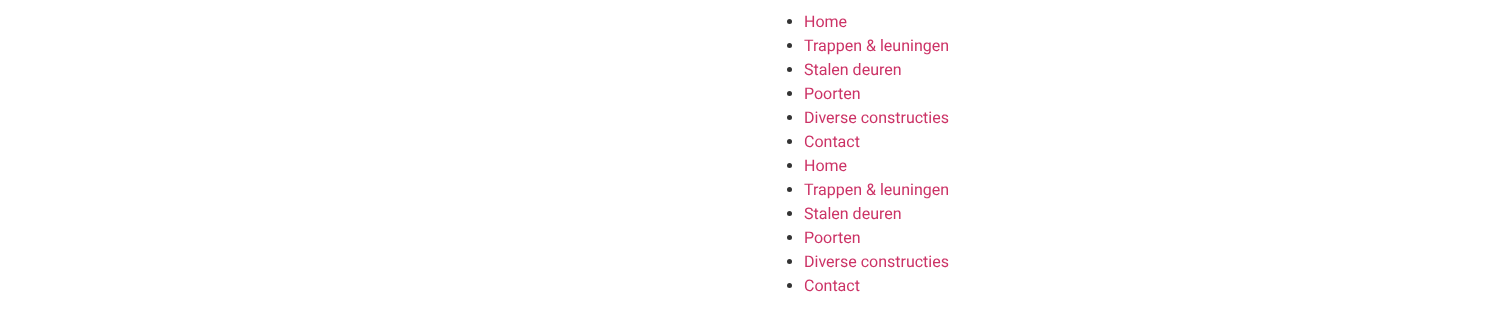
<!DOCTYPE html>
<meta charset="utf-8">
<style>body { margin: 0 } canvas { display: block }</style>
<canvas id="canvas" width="1508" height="336"></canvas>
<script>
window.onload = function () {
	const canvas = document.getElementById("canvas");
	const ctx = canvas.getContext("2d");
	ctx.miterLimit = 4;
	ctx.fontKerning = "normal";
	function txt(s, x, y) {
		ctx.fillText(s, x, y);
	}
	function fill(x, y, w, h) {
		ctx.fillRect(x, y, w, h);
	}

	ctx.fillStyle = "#FFFFFF";
	fill(0, 0, 1508, 336);
	ctx.fillStyle = "#333333";
	ctx.beginPath();
	ctx.arc(789.5, 21.5, 2.5, 0, Math.PI * 2);
	ctx.fill();
	ctx.beginPath();
	ctx.arc(789.5, 45.5, 2.5, 0, Math.PI * 2);
	ctx.fill();
	ctx.beginPath();
	ctx.arc(789.5, 69.5, 2.5, 0, Math.PI * 2);
	ctx.fill();
	ctx.beginPath();
	ctx.arc(789.5, 93.5, 2.5, 0, Math.PI * 2);
	ctx.fill();
	ctx.beginPath();
	ctx.arc(789.5, 117.5, 2.5, 0, Math.PI * 2);
	ctx.fill();
	ctx.beginPath();
	ctx.arc(789.5, 141.5, 2.5, 0, Math.PI * 2);
	ctx.fill();
	ctx.beginPath();
	ctx.arc(789.5, 165.5, 2.5, 0, Math.PI * 2);
	ctx.fill();
	ctx.beginPath();
	ctx.arc(789.5, 189.5, 2.5, 0, Math.PI * 2);
	ctx.fill();
	ctx.beginPath();
	ctx.arc(789.5, 213.5, 2.5, 0, Math.PI * 2);
	ctx.fill();
	ctx.beginPath();
	ctx.arc(789.5, 237.5, 2.5, 0, Math.PI * 2);
	ctx.fill();
	ctx.beginPath();
	ctx.arc(789.5, 261.5, 2.5, 0, Math.PI * 2);
	ctx.fill();
	ctx.beginPath();
	ctx.arc(789.5, 285.5, 2.5, 0, Math.PI * 2);
	ctx.fill();
	ctx.font = "16px Roboto";
	ctx.fillStyle = "#CC3366";
	txt("Home", 804, 27);
	txt("Trappen & leuningen", 804, 51);
	txt("Stalen deuren", 804, 75);
	txt("Poorten", 804, 99);
	txt("Diverse constructies", 804, 123);
	txt("Contact", 804, 147);
	txt("Home", 804, 171);
	txt("Trappen & leuningen", 804, 195);
	txt("Stalen deuren", 804, 219);
	txt("Poorten", 804, 243);
	txt("Diverse constructies", 804, 267);
	txt("Contact", 804, 291);
};
</script>
